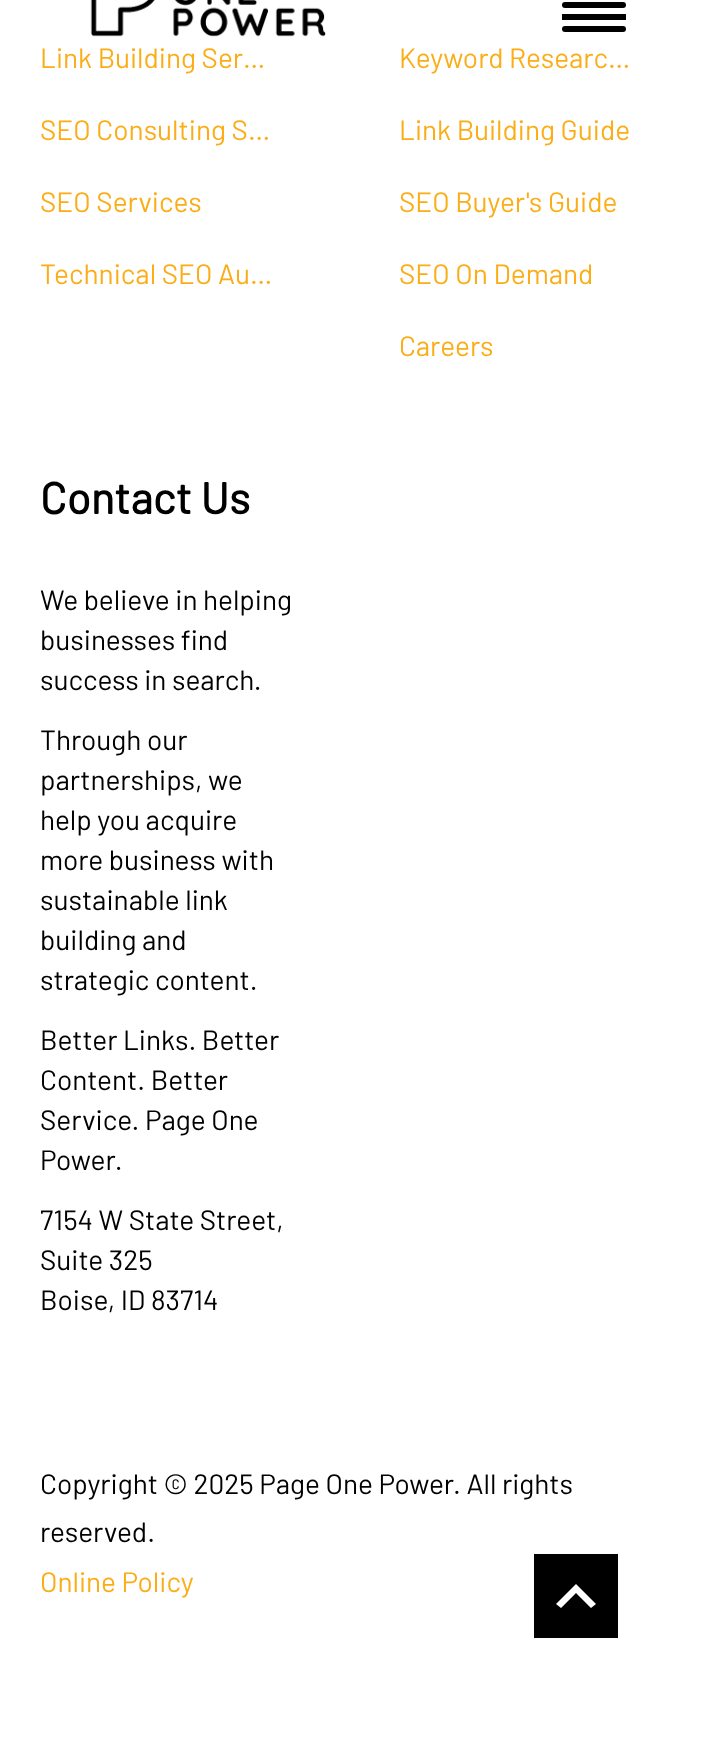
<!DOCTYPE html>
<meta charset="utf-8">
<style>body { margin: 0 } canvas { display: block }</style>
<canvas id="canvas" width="717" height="1738"></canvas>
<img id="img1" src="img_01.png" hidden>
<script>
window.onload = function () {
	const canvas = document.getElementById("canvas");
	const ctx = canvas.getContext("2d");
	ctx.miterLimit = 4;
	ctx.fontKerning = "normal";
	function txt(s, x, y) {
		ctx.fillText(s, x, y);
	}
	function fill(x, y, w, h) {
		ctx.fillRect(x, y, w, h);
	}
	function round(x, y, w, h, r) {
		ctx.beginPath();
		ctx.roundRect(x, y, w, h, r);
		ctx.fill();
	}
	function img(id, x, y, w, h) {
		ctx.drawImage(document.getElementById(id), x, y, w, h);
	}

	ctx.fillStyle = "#FFFFFF";
	fill(0, 0, 717, 1738);
	img("img1", 90, 0, 236, 37);
	ctx.fillStyle = "#000000";
	fill(562, 14, 64, 6);
	round(562, 2, 64, 6, 3);
	round(562, 26, 64, 6, 3);
	fill(534, 1554, 84, 84);
	ctx.fillStyle = "#FFFFFF";
	ctx.beginPath();
	ctx.moveTo(561, 1608);
	ctx.lineTo(576, 1593);
	ctx.lineTo(591, 1608);
	ctx.lineTo(596, 1604);
	ctx.lineTo(576, 1584);
	ctx.lineTo(556, 1604);
	ctx.closePath();
	ctx.fill();
	ctx.font = "28px Barlow";
	ctx.fillStyle = "#FBAD17";
	txt("Link Building Ser…", 40, 68);
	txt("SEO Consulting S…", 40, 140);
	txt("SEO Services", 40, 212);
	txt("Technical SEO Au…", 40, 284);
	txt("Keyword Researc…", 399, 68);
	txt("Link Building Guide", 399, 140);
	txt("SEO Buyer's Guide", 399, 212);
	txt("SEO On Demand", 399, 284);
	txt("Careers", 399, 356);
	ctx.font = "bold 44px Barlow";
	ctx.fillStyle = "#000000";
	txt("Contact Us", 40, 514);
	ctx.font = "28px Barlow";
	txt("We believe in helping", 40, 610);
	txt("businesses find", 40, 650);
	txt("success in search.", 40, 690);
	txt("Through our", 40, 750);
	txt("partnerships, we", 40, 790);
	txt("help you acquire", 40, 830);
	txt("more business with", 40, 870);
	txt("sustainable link", 40, 910);
	txt("building and", 40, 950);
	txt("strategic content.", 40, 990);
	txt("Better Links. Better", 40, 1050);
	txt("Content. Better", 40, 1090);
	txt("Service. Page One", 40, 1130);
	txt("Power.", 40, 1170);
	txt("7154 W State Street,", 40, 1230);
	txt("Suite 325", 40, 1270);
	txt("Boise, ID 83714", 40, 1310);
	txt("Copyright © 2025 Page One Power. All rights", 40, 1494);
	txt("reserved.", 40, 1542);
	ctx.fillStyle = "#FBAD17";
	txt("Online Policy", 40, 1592);
};
</script>
